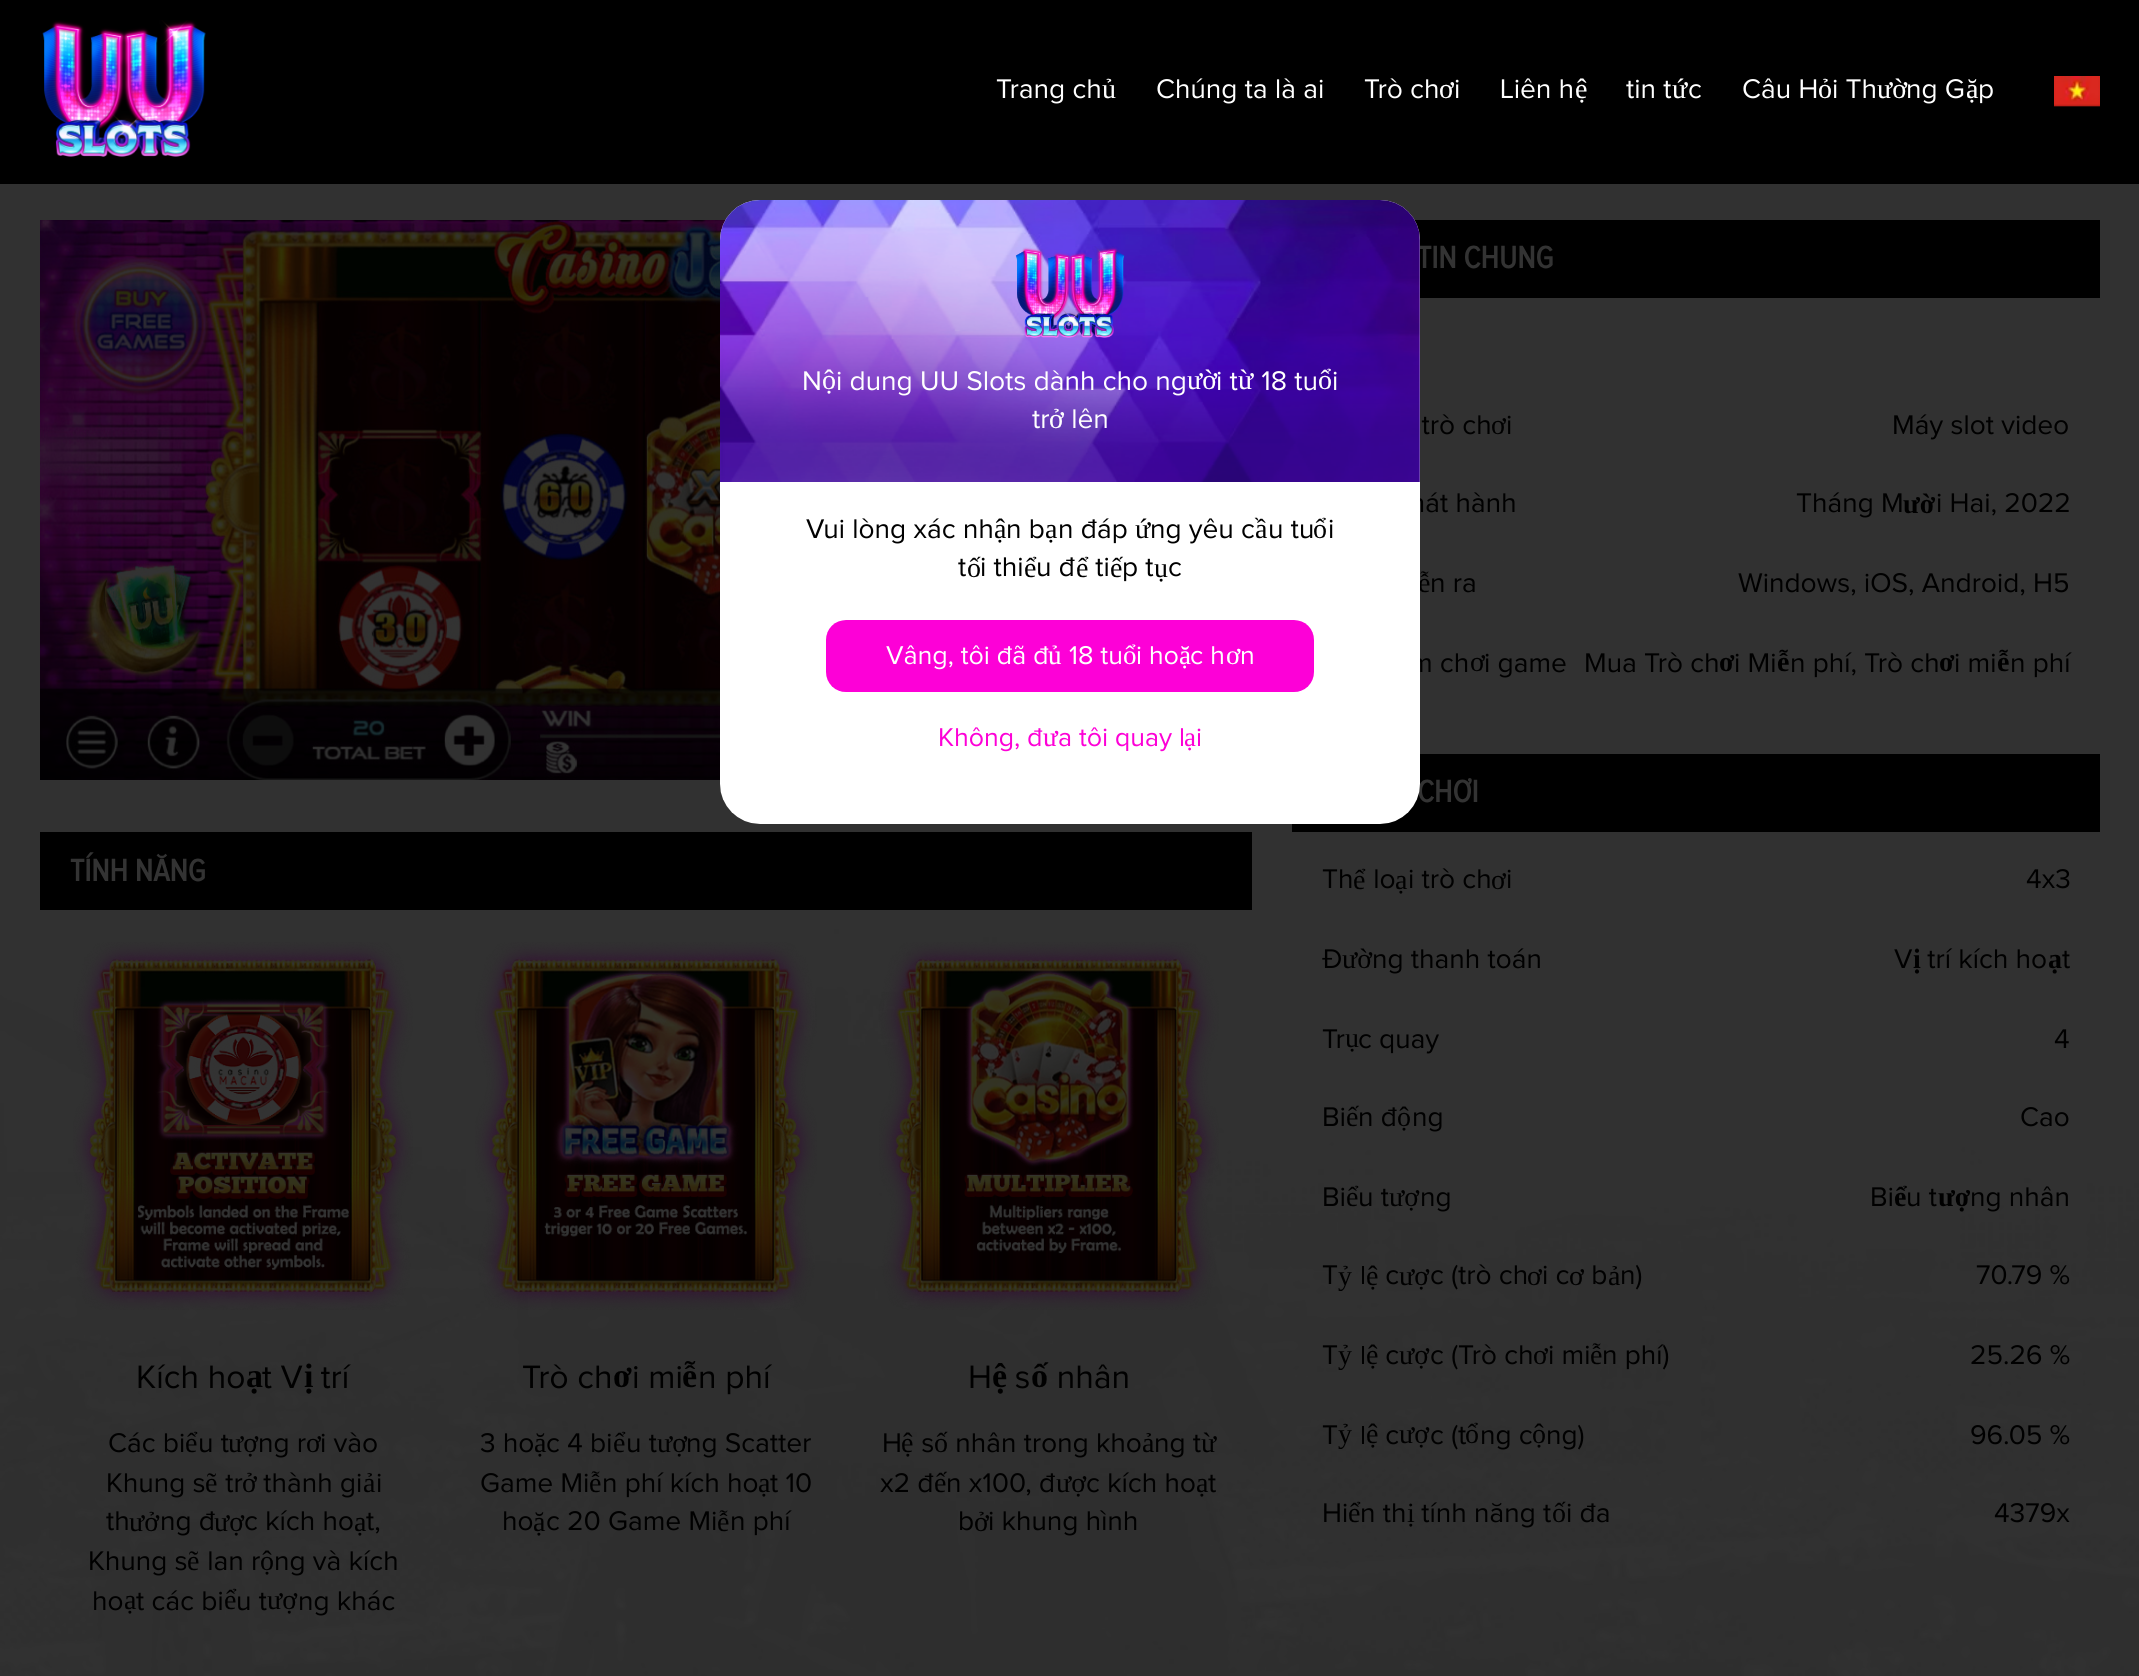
<!DOCTYPE html>
<meta charset="utf-8">
<style>body { margin: 0 } canvas { display: block }</style>
<canvas id="canvas" width="2139" height="1676"></canvas>
<img id="img1" src="img_01.png" hidden>
<img id="img2" src="img_02.png" hidden>
<img id="img3" src="img_03.png" hidden>
<img id="img4" src="img_04.png" hidden>
<img id="img5" src="img_05.png" hidden>
<img id="img6" src="img_06.png" hidden>
<img id="img7" src="img_07.png" hidden>
<img id="img8" src="img_08.png" hidden>
<img id="img9" src="img_09.png" hidden>
<img id="img10" src="img_10.png" hidden>
<img id="img11" src="img_11.png" hidden>
<img id="img12" src="img_12.png" hidden>
<img id="img13" src="img_13.png" hidden>
<img id="img14" src="img_14.png" hidden>
<img id="img15" src="img_15.png" hidden>
<img id="img16" src="img_16.png" hidden>
<img id="img17" src="img_17.png" hidden>
<img id="img18" src="img_18.png" hidden>
<img id="img19" src="img_19.png" hidden>
<img id="img20" src="img_20.png" hidden>
<img id="img21" src="img_21.png" hidden>
<img id="img22" src="img_22.png" hidden>
<img id="img23" src="img_23.png" hidden>
<img id="img24" src="img_24.png" hidden>
<img id="img25" src="img_25.png" hidden>
<img id="img26" src="img_26.png" hidden>
<img id="img27" src="img_27.png" hidden>
<img id="img28" src="img_28.png" hidden>
<img id="img29" src="img_29.png" hidden>
<img id="img30" src="img_30.png" hidden>
<img id="img31" src="img_31.png" hidden>
<img id="img32" src="img_32.png" hidden>
<img id="img33" src="img_33.png" hidden>
<img id="img34" src="img_34.png" hidden>
<img id="img35" src="img_35.png" hidden>
<img id="img36" src="img_36.png" hidden>
<img id="img37" src="img_37.png" hidden>
<img id="img38" src="img_38.png" hidden>
<img id="img39" src="img_39.png" hidden>
<img id="img40" src="img_40.png" hidden>
<img id="img41" src="img_41.png" hidden>
<img id="img42" src="img_42.png" hidden>
<img id="img43" src="img_43.png" hidden>
<img id="img44" src="img_44.png" hidden>
<img id="img45" src="img_45.png" hidden>
<img id="img46" src="img_46.png" hidden>
<img id="img47" src="img_47.png" hidden>
<img id="img48" src="img_48.png" hidden>
<img id="img49" src="img_49.png" hidden>
<img id="img50" src="img_50.png" hidden>
<img id="img51" src="img_51.png" hidden>
<img id="img52" src="img_52.png" hidden>
<img id="img53" src="img_53.png" hidden>
<img id="img54" src="img_54.png" hidden>
<img id="img55" src="img_55.png" hidden>
<img id="img56" src="img_56.png" hidden>
<img id="img57" src="img_57.png" hidden>
<img id="img58" src="img_58.png" hidden>
<img id="img59" src="img_59.png" hidden>
<img id="img60" src="img_60.png" hidden>
<img id="img61" src="img_61.png" hidden>
<img id="img62" src="img_62.png" hidden>
<img id="img63" src="img_63.png" hidden>
<img id="img64" src="img_64.png" hidden>
<img id="img65" src="img_65.png" hidden>
<img id="img66" src="img_66.png" hidden>
<img id="img67" src="img_67.png" hidden>
<img id="img68" src="img_68.png" hidden>
<img id="img69" src="img_69.png" hidden>
<img id="img70" src="img_70.png" hidden>
<img id="img71" src="img_71.png" hidden>
<img id="img72" src="img_72.png" hidden>
<img id="img73" src="img_73.png" hidden>
<img id="img74" src="img_74.png" hidden>
<img id="img75" src="img_75.png" hidden>
<img id="img76" src="img_76.png" hidden>
<img id="img77" src="img_77.png" hidden>
<img id="img78" src="img_78.png" hidden>
<img id="img79" src="img_79.png" hidden>
<img id="img80" src="img_80.png" hidden>
<img id="img81" src="img_81.png" hidden>
<img id="img82" src="img_82.png" hidden>
<img id="img83" src="img_83.png" hidden>
<img id="img84" src="img_84.png" hidden>
<img id="img85" src="img_85.png" hidden>
<img id="img86" src="img_86.png" hidden>
<img id="img87" src="img_87.png" hidden>
<img id="img88" src="img_88.png" hidden>
<img id="img89" src="img_89.png" hidden>
<img id="img90" src="img_90.png" hidden>
<img id="img91" src="img_91.png" hidden>
<img id="img92" src="img_92.png" hidden>
<img id="img93" src="img_93.png" hidden>
<img id="img94" src="img_94.png" hidden>
<img id="img95" src="img_95.png" hidden>
<img id="img96" src="img_96.png" hidden>
<img id="img97" src="img_97.png" hidden>
<img id="img98" src="img_98.png" hidden>
<img id="img99" src="img_99.png" hidden>
<img id="img100" src="img_100.png" hidden>
<img id="img101" src="img_101.png" hidden>
<img id="img102" src="img_102.png" hidden>
<img id="img103" src="img_103.png" hidden>
<img id="img104" src="img_104.png" hidden>
<img id="img105" src="img_105.png" hidden>
<img id="img106" src="img_106.png" hidden>
<img id="img107" src="img_107.png" hidden>
<img id="img108" src="img_108.png" hidden>
<img id="img109" src="img_109.png" hidden>
<img id="img110" src="img_110.png" hidden>
<img id="img111" src="img_111.png" hidden>
<img id="img112" src="img_112.png" hidden>
<img id="img113" src="img_113.png" hidden>
<img id="img114" src="img_114.png" hidden>
<img id="img115" src="img_115.png" hidden>
<img id="img116" src="img_116.png" hidden>
<img id="img117" src="img_117.png" hidden>
<img id="img118" src="img_118.png" hidden>
<img id="img119" src="img_119.png" hidden>
<img id="img120" src="img_120.png" hidden>
<img id="img121" src="img_121.png" hidden>
<img id="img122" src="img_122.png" hidden>
<img id="img123" src="img_123.png" hidden>
<img id="img124" src="img_124.png" hidden>
<img id="img125" src="img_125.png" hidden>
<img id="img126" src="img_126.png" hidden>
<img id="img127" src="img_127.png" hidden>
<img id="img128" src="img_128.png" hidden>
<img id="img129" src="img_129.png" hidden>
<img id="img130" src="img_130.png" hidden>
<img id="img131" src="img_131.png" hidden>
<img id="img132" src="img_132.png" hidden>
<img id="img133" src="img_133.png" hidden>
<img id="img134" src="img_134.png" hidden>
<img id="img135" src="img_135.png" hidden>
<img id="img136" src="img_136.png" hidden>
<img id="img137" src="img_137.png" hidden>
<img id="img138" src="img_138.png" hidden>
<img id="img139" src="img_139.png" hidden>
<img id="img140" src="img_140.png" hidden>
<img id="img141" src="img_141.png" hidden>
<img id="img142" src="img_142.png" hidden>
<img id="img143" src="img_143.png" hidden>
<img id="img144" src="img_144.png" hidden>
<img id="img145" src="img_145.png" hidden>
<img id="img146" src="img_146.png" hidden>
<img id="img147" src="img_147.png" hidden>
<img id="img148" src="img_148.png" hidden>
<img id="img149" src="img_149.png" hidden>
<img id="img150" src="img_150.png" hidden>
<img id="img151" src="img_151.png" hidden>
<img id="img152" src="img_152.png" hidden>
<img id="img153" src="img_153.png" hidden>
<img id="img154" src="img_154.png" hidden>
<img id="img155" src="img_155.png" hidden>
<img id="img156" src="img_156.png" hidden>
<img id="img157" src="img_157.png" hidden>
<script>
window.onload = function () {
	const canvas = document.getElementById("canvas");
	const ctx = canvas.getContext("2d");
	ctx.miterLimit = 4;
	ctx.fontKerning = "normal";
	function txt(s, x, y) {
		ctx.fillText(s, x, y);
	}
	function fill(x, y, w, h) {
		ctx.fillRect(x, y, w, h);
	}
	function round(x, y, w, h, r) {
		ctx.beginPath();
		ctx.roundRect(x, y, w, h, r);
		ctx.fill();
	}
	function img(id, x, y, w, h) {
		ctx.drawImage(document.getElementById(id), x, y, w, h);
	}

	ctx.fillStyle = "#FFFFFF";
	fill(0, 0, 2139, 1676);
	ctx.fillStyle = "#000000";
	fill(0, 0, 2139, 184);
	img("img1", 42, 20, 164, 137);
	img("img2", 996, 79, 104, 25);
	img("img3", 1157, 78, 166, 26);
	img("img4", 1364, 78, 74, 21);
	img("img5", 1455, 79, 4, 19);
	img("img6", 1501, 78, 71, 21);
	img("img7", 1626, 79, 46, 20);
	img("img8", 1689, 84, 12, 15);
	img("img9", 1743, 78, 74, 21);
	img("img10", 1833, 79, 42, 19);
	img("img11", 1908, 79, 56, 25);
	img("img12", 1980, 84, 13, 20);
	img("img13", 2054, 76, 46, 31);
	img("img14", 0, 184, 2139, 1492);
	img("img15", 40, 220, 686, 560);
	fill(40, 832, 1212, 78);
	img("img16", 73, 942, 340, 368);
	img("img17", 138, 1364, 106, 25);
	img("img18", 262, 1365, 41, 24);
	img("img19", 321, 1364, 30, 25);
	img("img20", 109, 1432, 75, 21);
	img("img21", 200, 1434, 29, 19);
	img("img22", 260, 1438, 46, 20);
	img("img23", 321, 1432, 56, 21);
	img("img24", 108, 1473, 97, 25);
	img("img25", 225, 1474, 18, 19);
	img("img26", 263, 1472, 98, 26);
	img("img27", 377, 1473, 4, 19);
	img("img28", 106, 1511, 22, 20);
	img("img29", 162, 1511, 53, 25);
	img("img30", 245, 1510, 108, 21);
	img("img31", 366, 1512, 14, 22);
	img("img32", 90, 1551, 97, 25);
	img("img33", 209, 1551, 51, 20);
	img("img34", 276, 1550, 121, 26);
	img("img35", 94, 1591, 29, 20);
	img("img36", 136, 1590, 86, 21);
	img("img37", 238, 1592, 29, 19);
	img("img38", 300, 1590, 95, 26);
	img("img39", 475, 942, 342, 368);
	img("img40", 523, 1364, 87, 25);
	img("img41", 634, 1366, 47, 22);
	img("img42", 700, 1364, 72, 31);
	img("img43", 480, 1433, 53, 20);
	img("img44", 547, 1433, 64, 20);
	img("img45", 628, 1434, 29, 19);
	img("img46", 688, 1433, 123, 25);
	img("img47", 481, 1473, 107, 20);
	img("img48", 604, 1472, 154, 26);
	img("img49", 770, 1473, 41, 20);
	img("img50", 504, 1511, 29, 20);
	img("img51", 547, 1511, 169, 20);
	img("img52", 732, 1510, 60, 26);
	img("img53", 879, 942, 340, 368);
	img("img54", 970, 1365, 20, 23);
	img("img55", 1015, 1371, 14, 18);
	img("img56", 1059, 1364, 69, 25);
	img("img57", 884, 1433, 16, 19);
	img("img58", 922, 1438, 11, 15);
	img("img59", 957, 1432, 184, 26);
	img("img60", 1156, 1434, 45, 24);
	img("img61", 880, 1473, 54, 20);
	img("img62", 948, 1473, 107, 23);
	img("img63", 1087, 1472, 108, 21);
	img("img64", 1208, 1474, 8, 19);
	img("img65", 960, 1511, 13, 20);
	img("img66", 989, 1510, 148, 26);
	fill(1414, 220, 686, 78);
	img("img67", 1421, 414, 69, 21);
	img("img68", 1507, 415, 4, 19);
	img("img69", 1894, 414, 174, 26);
	img("img70", 1420, 492, 95, 21);
	img("img71", 1796, 492, 106, 26);
	img("img72", 1937, 493, 132, 23);
	img("img73", 1432, 578, 43, 15);
	img("img74", 1738, 573, 330, 23);
	img("img75", 1420, 653, 48, 20);
	img("img76", 1485, 653, 81, 25);
	img("img77", 1586, 652, 132, 21);
	img("img78", 1735, 653, 40, 19);
	img("img79", 1792, 652, 146, 26);
	img("img80", 1955, 653, 40, 19);
	img("img81", 2012, 652, 60, 26);
	fill(1292, 754, 808, 78);
	img("img82", 1322, 869, 30, 19);
	img("img83", 1375, 869, 20, 20);
	img("img84", 1409, 868, 81, 21);
	img("img85", 1507, 869, 4, 19);
	img("img86", 2026, 869, 44, 20);
	img("img87", 1322, 949, 19, 19);
	img("img88", 1374, 948, 166, 26);
	img("img89", 1894, 949, 19, 19);
	img("img90", 1927, 948, 119, 21);
	img("img91", 2062, 950, 8, 19);
	img("img92", 1322, 1029, 23, 19);
	img("img93", 1359, 1034, 80, 20);
	img("img94", 2054, 1029, 15, 19);
	img("img95", 1324, 1107, 21, 19);
	img("img96", 1360, 1107, 37, 20);
	img("img97", 1414, 1112, 28, 20);
	img("img98", 2021, 1107, 48, 20);
	img("img99", 1324, 1187, 21, 19);
	img("img100", 1360, 1188, 29, 19);
	img("img101", 1422, 1192, 28, 20);
	img("img102", 1872, 1187, 21, 19);
	img("img103", 1908, 1188, 29, 19);
	img("img104", 1972, 1186, 96, 26);
	img("img105", 1322, 1265, 16, 19);
	fill(1362, 1266, 2, 18);
	img("img106", 1386, 1270, 13, 15);
	img("img107", 1431, 1264, 96, 26);
	img("img108", 1543, 1265, 26, 20);
	img("img109", 1593, 1265, 13, 20);
	img("img110", 1622, 1264, 20, 26);
	img("img111", 1976, 1265, 94, 20);
	img("img112", 1322, 1345, 16, 19);
	fill(1362, 1346, 2, 18);
	img("img113", 1386, 1350, 13, 15);
	img("img114", 1431, 1344, 101, 26);
	img("img115", 1549, 1345, 40, 19);
	img("img116", 1604, 1344, 65, 26);
	img("img117", 1971, 1345, 99, 20);
	img("img118", 1322, 1425, 16, 19);
	fill(1362, 1426, 2, 18);
	img("img119", 1386, 1430, 13, 15);
	img("img120", 1431, 1424, 36, 26);
	img("img121", 1482, 1430, 50, 20);
	img("img122", 1548, 1424, 36, 26);
	img("img123", 1971, 1425, 99, 20);
	img("img124", 1324, 1503, 23, 19);
	img("img125", 1362, 1503, 43, 20);
	img("img126", 1421, 1502, 130, 26);
	img("img127", 1567, 1503, 42, 20);
	img("img128", 1994, 1503, 76, 20);
	ctx.font = "28px Liberation Serif";
	ctx.fillStyle = "#FFFFFF";
	txt("ủ", 1102, 98);
	txt("ơ", 1439, 98);
	txt("ệ", 1575, 98);
	txt("ứ", 1672, 98);
	txt("ỏ", 1818, 98);
	txt("ườ", 1877, 98);
	txt("ặ", 1966, 98);
	ctx.font = "bold 32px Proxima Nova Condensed";
	ctx.fillStyle = "#333333";
	txt("TÍNH NĂNG", 70, 881);
	ctx.font = "bold 34px Liberation Serif";
	ctx.fillStyle = "#000000";
	txt("ạ", 246, 1387);
	txt("ị", 304, 1387);
	ctx.font = "28px Liberation Serif";
	txt("ể", 185, 1452);
	txt("ượ", 228, 1452);
	txt("ơ", 306, 1452);
	txt("ẽ", 205, 1492);
	txt("ở", 242, 1492);
	txt("ả", 363, 1492);
	txt("ưở", 129, 1531);
	txt("ượ", 214, 1531);
	txt("ạ", 354, 1531);
	txt("ẽ", 187, 1570);
	txt("ộ", 260, 1570);
	txt("ạ", 124, 1609);
	txt("ể", 224, 1609);
	txt("ượ", 267, 1609);
	ctx.font = "bold 34px Liberation Serif";
	txt("ơ", 613, 1387);
	txt("ễ", 682, 1387);
	ctx.font = "28px Liberation Serif";
	txt("ặ", 534, 1452);
	txt("ể", 613, 1452);
	txt("ượ", 657, 1452);
	txt("ễ", 589, 1492);
	txt("ạ", 758, 1492);
	txt("ặ", 533, 1531);
	txt("ễ", 717, 1531);
	ctx.font = "bold 34px Liberation Serif";
	txt("ệ", 992, 1387);
	txt("ố", 1031, 1387);
	ctx.font = "28px Liberation Serif";
	txt("ệ", 901, 1452);
	txt("ố", 934, 1452);
	txt("ả", 1142, 1452);
	txt("ừ", 1201, 1452);
	txt("ế", 934, 1492);
	txt("ượ", 1056, 1492);
	txt("ạ", 1196, 1492);
	txt("ở", 974, 1531);
	ctx.font = "bold 32px Proxima Nova Condensed";
	ctx.fillStyle = "#333333";
	txt("TIN CHUNG", 1417, 268);
	ctx.font = "28px Liberation Serif";
	ctx.fillStyle = "#000000";
	txt("ơ", 1491, 434);
	ctx.font = "bold 28px Liberation Serif";
	txt("ườ", 1903, 513);
	ctx.font = "28px Liberation Serif";
	txt("ễ", 1418, 592);
	txt("ơ", 1470, 671);
	ctx.font = "bold 28px Liberation Serif";
	txt("ơ", 1719, 671);
	txt("ễ", 1777, 671);
	txt("ơ", 1939, 671);
	txt("ễ", 1997, 671);
	ctx.font = "bold 32px Proxima Nova Condensed";
	ctx.fillStyle = "#333333";
	txt("CHƠI", 1417, 802);
	ctx.font = "28px Liberation Serif";
	ctx.fillStyle = "#000000";
	txt("ể", 1353, 889);
	txt("ạ", 1395, 889);
	txt("ơ", 1491, 889);
	txt("ườ", 1342, 968);
	ctx.font = "bold 28px Liberation Serif";
	txt("ị", 1913, 968);
	txt("ạ", 2048, 968);
	ctx.font = "28px Liberation Serif";
	txt("ụ", 1345, 1047);
	txt("ế", 1346, 1126);
	txt("ộ", 1397, 1126);
	txt("ể", 1346, 1206);
	txt("ượ", 1389, 1206);
	ctx.font = "bold 28px Liberation Serif";
	txt("ể", 1894, 1206);
	txt("ượ", 1938, 1206);
	ctx.font = "28px Liberation Serif";
	txt("ỷ", 1338, 1285);
	txt("ệ", 1366, 1285);
	txt("ượ", 1399, 1285);
	txt("ơ", 1527, 1285);
	txt("ơ", 1569, 1285);
	txt("ả", 1608, 1285);
	txt("ỷ", 1338, 1364);
	txt("ệ", 1366, 1364);
	txt("ượ", 1399, 1364);
	txt("ơ", 1533, 1364);
	txt("ễ", 1590, 1364);
	txt("ỷ", 1338, 1443);
	txt("ệ", 1366, 1443);
	txt("ượ", 1399, 1443);
	txt("ổ", 1465, 1443);
	txt("ộ", 1532, 1443);
	txt("ể", 1348, 1522);
	txt("ị", 1407, 1522);
	txt("ố", 1552, 1522);
	ctx.fillStyle = "#FFFFFF";
	round(720, 200, 700, 624, 40);
	img("img129", 720, 200, 700, 282);
	img("img130", 1015, 246, 110, 92);
	img("img131", 804, 371, 16, 19);
	txt("ộ", 822, 389);
	img("img132", 837, 370, 348, 26);
	txt("ườ", 1187, 389);
	img("img133", 1217, 371, 21, 20);
	txt("ừ", 1238, 389);
	img("img134", 1261, 371, 55, 20);
	txt("ổ", 1318, 389);
	img("img135", 1333, 371, 4, 19);
	img("img136", 1032, 410, 17, 19);
	txt("ở", 1049, 428);
	img("img137", 1073, 408, 34, 21);
	img("img138", 806, 518, 186, 26);
	ctx.fillStyle = "#000000";
	txt("ậ", 994, 538);
	img("img139", 1008, 519, 36, 20);
	txt("ạ", 1045, 538);
	img("img140", 1060, 518, 67, 26);
	txt("ứ", 1135, 538);
	img("img141", 1152, 518, 102, 26);
	txt("ầ", 1255, 538);
	img("img142", 1270, 520, 43, 19);
	txt("ổ", 1313, 538);
	img("img143", 1329, 519, 4, 19);
	img("img144", 958, 558, 8, 19);
	txt("ố", 967, 577);
	img("img145", 981, 557, 41, 20);
	txt("ể", 1024, 577);
	img("img146", 1038, 557, 37, 20);
	txt("ể", 1076, 577);
	img("img147", 1095, 557, 13, 20);
	txt("ế", 1110, 577);
	img("img148", 1124, 558, 30, 24);
	txt("ụ", 1154, 577);
	img("img149", 1169, 562, 12, 15);
	ctx.fillStyle = "#FD00D7";
	round(826, 620, 488, 72, 20);
	img("img150", 886, 645, 163, 25);
	ctx.font = "27px Liberation Serif";
	ctx.fillStyle = "#FFFFFF";
	txt("ủ", 1048, 664);
	img("img151", 1069, 645, 52, 20);
	txt("ổ", 1123, 664);
	img("img152", 1137, 646, 41, 19);
	txt("ặ", 1179, 664);
	img("img153", 1191, 646, 32, 19);
	txt("ơ", 1226, 664);
	img("img154", 1242, 650, 11, 14);
	img("img155", 940, 727, 103, 25);
	ctx.fillStyle = "#FD00D7";
	txt("ư", 1043, 746);
	img("img156", 1059, 727, 124, 25);
	txt("ạ", 1184, 746);
	img("img157", 1197, 728, 4, 18);
};
</script>
